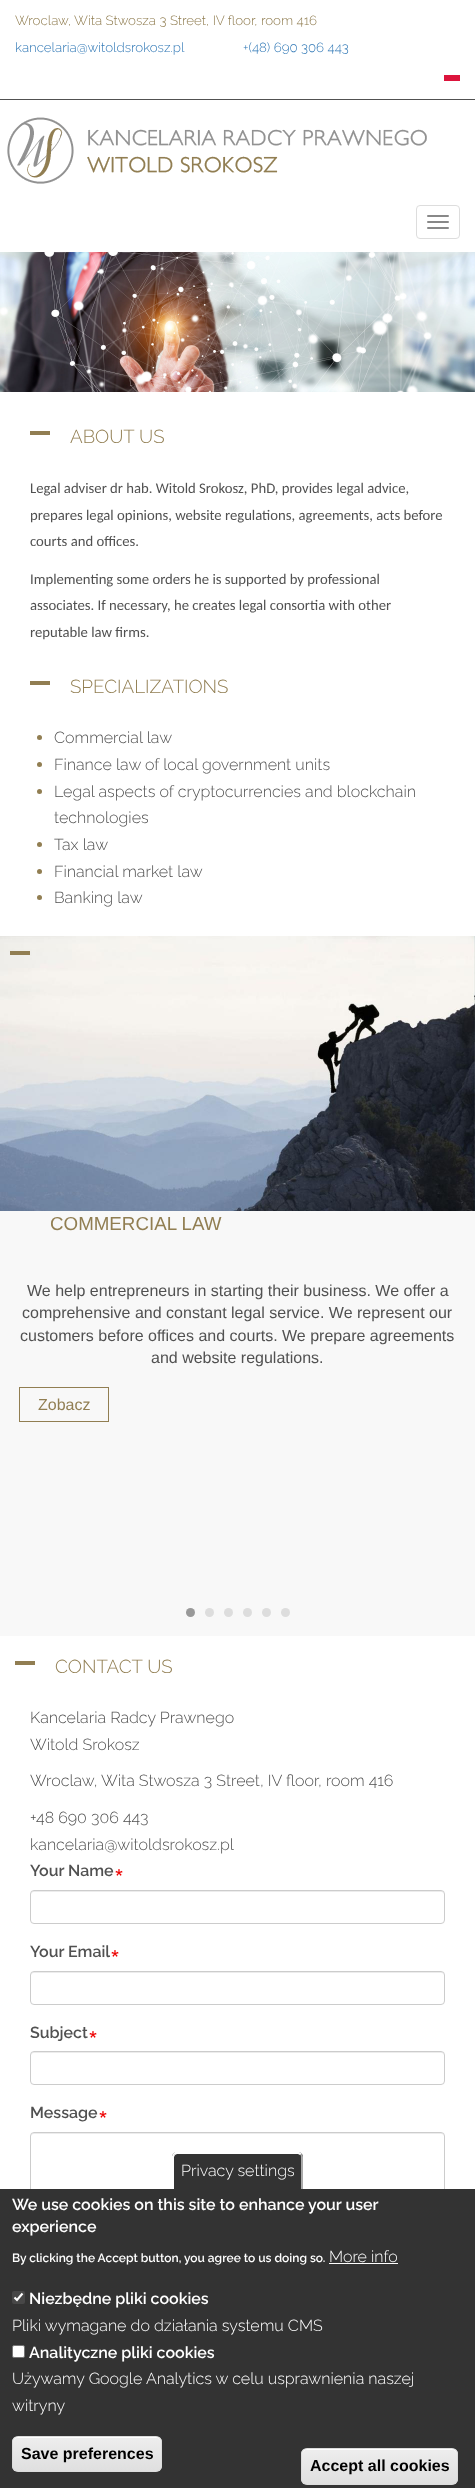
<!DOCTYPE html>
<meta charset="utf-8">
<style>body { margin: 0 } canvas { display: block }</style>
<canvas id="canvas" width="475" height="2488"></canvas>
<img id="img1" src="img_01.png" hidden>
<img id="img2" src="img_02.png" hidden>
<img id="img3" src="img_03.png" hidden>
<img id="img4" src="img_04.png" hidden>
<script>
window.onload = function () {
	const canvas = document.getElementById("canvas");
	const ctx = canvas.getContext("2d");
	ctx.miterLimit = 4;
	ctx.fontKerning = "normal";
	function txt(s, x, y) {
		ctx.fillText(s, x, y);
	}
	function fill(x, y, w, h) {
		ctx.fillRect(x, y, w, h);
	}
	function round(x, y, w, h, r) {
		ctx.beginPath();
		ctx.roundRect(x, y, w, h, r);
		ctx.fill();
	}
	function img(id, x, y, w, h) {
		ctx.drawImage(document.getElementById(id), x, y, w, h);
	}
	let gradient;

	ctx.fillStyle = "#FFFFFF";
	fill(0, 0, 475, 2488);
	ctx.fillStyle = "#515151";
	fill(0, 99, 475, 1);
	ctx.fillStyle = "#DC143C";
	fill(444, 75, 16, 6);
	img("img1", 7, 117, 420, 67);
	ctx.beginPath();
	ctx.roundRect(416.5, 205.5, 43, 33, 3.5);
	ctx.strokeStyle = "#DDDDDD";
	ctx.stroke();
	ctx.fillStyle = "#888888";
	round(427, 215, 22, 2, 1);
	round(427, 221, 22, 2, 1);
	round(427, 227, 22, 2, 1);
	img("img2", 0, 252, 475, 140);
	ctx.fillStyle = "#917E52";
	fill(30, 431, 20, 4);
	fill(30, 681, 20, 4);
	ctx.beginPath();
	ctx.arc(39.5, 737.5, 2.5, 0, Math.PI * 2);
	ctx.fill();
	ctx.beginPath();
	ctx.arc(39.5, 764.5, 2.5, 0, Math.PI * 2);
	ctx.fill();
	ctx.beginPath();
	ctx.arc(39.5, 791.5, 2.5, 0, Math.PI * 2);
	ctx.fill();
	ctx.beginPath();
	ctx.arc(39.5, 844.5, 2.5, 0, Math.PI * 2);
	ctx.fill();
	ctx.beginPath();
	ctx.arc(39.5, 871.5, 2.5, 0, Math.PI * 2);
	ctx.fill();
	ctx.beginPath();
	ctx.arc(39.5, 897.5, 2.5, 0, Math.PI * 2);
	ctx.fill();
	ctx.fillStyle = "#F8F8F8";
	fill(0, 1211, 475, 425);
	img("img3", 0, 936, 475, 275);
	ctx.fillStyle = "#917E52";
	fill(10, 951, 20, 4);
	ctx.strokeStyle = "#917E52";
	ctx.strokeRect(19.5, 1387.5, 89, 34);
	ctx.fillStyle = "#999999";
	ctx.beginPath();
	ctx.arc(190.5, 1612.5, 4.5, 0, Math.PI * 2);
	ctx.fill();
	ctx.fillStyle = "#DDDDDD";
	ctx.beginPath();
	ctx.arc(209.5, 1612.5, 4.5, 0, Math.PI * 2);
	ctx.fill();
	ctx.beginPath();
	ctx.arc(228.5, 1612.5, 4.5, 0, Math.PI * 2);
	ctx.fill();
	ctx.beginPath();
	ctx.arc(247.5, 1612.5, 4.5, 0, Math.PI * 2);
	ctx.fill();
	ctx.beginPath();
	ctx.arc(266.5, 1612.5, 4.5, 0, Math.PI * 2);
	ctx.fill();
	ctx.beginPath();
	ctx.arc(285.5, 1612.5, 4.5, 0, Math.PI * 2);
	ctx.fill();
	ctx.fillStyle = "#917E52";
	fill(15, 1661, 20, 4);
	img("img4", 115, 1869, 8, 7);
	ctx.fillStyle = "#ECECEC";
	ctx.beginPath();
	ctx.moveTo(34, 1892);
	ctx.lineTo(441, 1892);
	ctx.bezierCurveTo(443, 1892, 444, 1893, 444, 1895);
	ctx.bezierCurveTo(444, 1893, 443, 1891, 441, 1891);
	ctx.lineTo(34, 1891);
	ctx.bezierCurveTo(32, 1891, 31, 1893, 31, 1895);
	ctx.bezierCurveTo(31, 1893, 32, 1892, 34, 1892);
	ctx.closePath();
	ctx.fill();
	ctx.beginPath();
	ctx.roundRect(30.5, 1890.5, 414, 33, 3.5);
	ctx.strokeStyle = "#CCCCCC";
	ctx.stroke();
	img("img4", 111, 1950, 8, 7);
	ctx.beginPath();
	ctx.moveTo(34, 1973);
	ctx.lineTo(441, 1973);
	ctx.bezierCurveTo(443, 1973, 444, 1974, 444, 1976);
	ctx.bezierCurveTo(444, 1974, 443, 1972, 441, 1972);
	ctx.lineTo(34, 1972);
	ctx.bezierCurveTo(32, 1972, 31, 1974, 31, 1976);
	ctx.bezierCurveTo(31, 1974, 32, 1973, 34, 1973);
	ctx.closePath();
	ctx.fill();
	ctx.beginPath();
	ctx.roundRect(30.5, 1971.5, 414, 33, 3.5);
	ctx.stroke();
	img("img4", 89, 2031, 8, 7);
	ctx.beginPath();
	ctx.moveTo(34, 2053);
	ctx.lineTo(441, 2053);
	ctx.bezierCurveTo(443, 2053, 444, 2054, 444, 2056);
	ctx.bezierCurveTo(444, 2054, 443, 2052, 441, 2052);
	ctx.lineTo(34, 2052);
	ctx.bezierCurveTo(32, 2052, 31, 2054, 31, 2056);
	ctx.bezierCurveTo(31, 2054, 32, 2053, 34, 2053);
	ctx.closePath();
	ctx.fill();
	ctx.beginPath();
	ctx.roundRect(30.5, 2051.5, 414, 33, 3.5);
	ctx.stroke();
	img("img4", 99, 2111, 8, 7);
	ctx.beginPath();
	ctx.moveTo(34, 2134);
	ctx.lineTo(441, 2134);
	ctx.bezierCurveTo(443, 2134, 444, 2135, 444, 2137);
	ctx.bezierCurveTo(444, 2135, 443, 2133, 441, 2133);
	ctx.lineTo(34, 2133);
	ctx.bezierCurveTo(32, 2133, 31, 2135, 31, 2137);
	ctx.bezierCurveTo(31, 2135, 32, 2134, 34, 2134);
	ctx.closePath();
	ctx.fill();
	ctx.beginPath();
	ctx.roundRect(30.5, 2132.5, 414, 113, 3.5);
	ctx.stroke();
	ctx.fillStyle = "#333333";
	fill(0, 2189, 475, 299);
	ctx.beginPath();
	ctx.roundRect(172, 2152, 131, 37, [5, 5, 0, 0]);
	ctx.fill();
	ctx.fillStyle = "#FFFFFF";
	ctx.beginPath();
	ctx.moveTo(177, 2154);
	ctx.lineTo(175, 2155);
	ctx.lineTo(173, 2154);
	ctx.lineTo(175, 2152);
	ctx.lineTo(279, 2152);
	ctx.bezierCurveTo(287, 2152, 297, 2148, 302, 2154);
	ctx.lineTo(300, 2155);
	ctx.lineTo(298, 2154);
	ctx.closePath();
	ctx.fill();
	ctx.fillStyle = "#AAAAAA";
	ctx.beginPath();
	ctx.moveTo(301.5, 2154);
	ctx.lineTo(300.5, 2155);
	ctx.bezierCurveTo(301, 2156, 301, 2156.5, 301, 2157);
	ctx.lineTo(301, 2189);
	ctx.lineTo(303, 2189);
	ctx.lineTo(303, 2157);
	ctx.bezierCurveTo(303, 2156, 302.5, 2155, 301.5, 2154);
	ctx.closePath();
	ctx.fill();
	ctx.fillStyle = "#FFFFFF";
	ctx.beginPath();
	ctx.moveTo(172, 2156);
	ctx.lineTo(173.5, 2153.5);
	ctx.lineTo(175, 2155);
	ctx.lineTo(174, 2157);
	ctx.lineTo(174, 2189);
	ctx.lineTo(172, 2189);
	ctx.closePath();
	ctx.fill();
	fill(329, 2263, 69, 1);
	ctx.fillStyle = "#474747";
	round(12, 2291, 13, 13, 2);
	ctx.beginPath();
	ctx.moveTo(14.5, 2297.5);
	ctx.lineTo(17, 2300);
	ctx.lineTo(22.5, 2293.5);
	ctx.strokeStyle = "#FFFFFF";
	ctx.lineWidth = 2.1;
	ctx.stroke();
	ctx.fillStyle = "#FFFFFF";
	ctx.beginPath();
	ctx.roundRect(12.5, 2345.5, 12, 12, 1.5);
	ctx.fill();
	ctx.strokeStyle = "#767676";
	ctx.lineWidth = 1;
	ctx.stroke();
	ctx.save();
	ctx.beginPath();
	ctx.roundRect(12, 2436, 150, 36, 6);
	ctx.clip();
	gradient = ctx.createLinearGradient(87, 2437, 87, 2471);
	gradient.addColorStop(0.05, "#EDEDED");
	gradient.addColorStop(1, "#DFDFDF");
	ctx.fillStyle = gradient;
	fill(12, 2437, 150, 34);
	ctx.restore();
	ctx.beginPath();
	ctx.moveTo(18, 2438);
	ctx.lineTo(156, 2438);
	ctx.bezierCurveTo(159, 2438, 161, 2440, 161, 2443);
	ctx.lineTo(161, 2442);
	ctx.bezierCurveTo(161, 2439, 159, 2437, 156, 2437);
	ctx.lineTo(18, 2437);
	ctx.bezierCurveTo(15, 2437, 13, 2439, 13, 2442);
	ctx.lineTo(13, 2443);
	ctx.bezierCurveTo(13, 2440, 15, 2438, 18, 2438);
	ctx.closePath();
	ctx.fill();
	ctx.beginPath();
	ctx.roundRect(12.5, 2436.5, 149, 35, 5.5);
	ctx.strokeStyle = "#DCDCDC";
	ctx.stroke();
	ctx.save();
	ctx.beginPath();
	ctx.roundRect(301, 2448, 157, 37, 6);
	ctx.clip();
	gradient = ctx.createLinearGradient(380, 2449, 380, 2484);
	gradient.addColorStop(0.05, "#EDEDED");
	gradient.addColorStop(1, "#DFDFDF");
	ctx.fillStyle = gradient;
	fill(301, 2449, 157, 35);
	ctx.restore();
	ctx.beginPath();
	ctx.moveTo(307, 2450);
	ctx.lineTo(452, 2450);
	ctx.bezierCurveTo(455, 2450, 457, 2452, 457, 2455);
	ctx.lineTo(457, 2454);
	ctx.bezierCurveTo(457, 2451, 455, 2449, 452, 2449);
	ctx.lineTo(307, 2449);
	ctx.bezierCurveTo(304, 2449, 302, 2451, 302, 2454);
	ctx.lineTo(302, 2455);
	ctx.bezierCurveTo(302, 2452, 304, 2450, 307, 2450);
	ctx.closePath();
	ctx.fill();
	ctx.beginPath();
	ctx.roundRect(301.5, 2448.5, 156, 36, 5.5);
	ctx.stroke();
	ctx.font = "300 13.3px Raleway";
	ctx.fillStyle = "#917E52";
	txt("Wroclaw, Wita Stwosza 3 Street, IV floor, room 416", 15, 25);
	ctx.fillStyle = "#337AB7";
	txt("kancelaria@witoldsrokosz.pl", 15, 52);
	txt("+(48) 690 306 443", 243, 52);
	ctx.font = "300 18.75px Raleway";
	ctx.fillStyle = "#917E52";
	txt("ABOUT US", 70, 443);
	ctx.font = "14.7px Carlito";
	ctx.fillStyle = "#515151";
	txt("Legal adviser dr hab. Witold Srokosz, PhD, provides legal advice,", 30, 493);
	txt("prepares legal opinions, website regulations, agreements, acts before", 30, 520);
	txt("courts and offices.", 30, 546);
	txt("Implementing some orders he is supported by professional", 30, 584);
	txt("associates. If necessary, he creates legal consortia with other", 30, 610);
	txt("reputable law firms.", 30, 637);
	ctx.font = "300 18.75px Raleway";
	ctx.fillStyle = "#917E52";
	txt("SPECIALIZATIONS", 70, 693);
	ctx.font = "300 16px Raleway";
	ctx.fillStyle = "#515151";
	txt("Commercial law", 54, 743);
	txt("Finance law of local government units", 54, 770);
	txt("Legal aspects of cryptocurrencies and blockchain", 54, 797);
	txt("technologies", 54, 823);
	txt("Tax law", 54, 850);
	txt("Financial market law", 54, 877);
	txt("Banking law", 54, 903);
	ctx.font = "18.75px Liberation Sans";
	ctx.fillStyle = "#917E52";
	txt("COMMERCIAL LAW", 50, 1230);
	ctx.font = "16px Liberation Sans";
	ctx.fillStyle = "#515151";
	txt("We help entrepreneurs in starting their business. We offer a", 27, 1296);
	txt("comprehensive and constant legal service. We represent our", 22, 1318);
	txt("customers before offices and courts. We prepare agreements", 20, 1341);
	txt("and website regulations.", 151, 1363);
	ctx.fillStyle = "#917E52";
	txt("Zobacz", 38, 1410);
	ctx.font = "300 18.75px Raleway";
	txt("CONTACT US", 55, 1673);
	ctx.font = "300 16px Raleway";
	ctx.fillStyle = "#515151";
	txt("Kancelaria Radcy Prawnego", 30, 1723);
	txt("Witold Srokosz", 30, 1750);
	txt("Wroclaw, Wita Stwosza 3 Street, IV floor, room 416", 30, 1786);
	txt("+48 690 306 443", 30, 1823);
	txt("kancelaria@witoldsrokosz.pl", 30, 1850);
	ctx.font = "600 16px Raleway";
	txt("Your Name", 30, 1876);
	txt("Your Email", 30, 1957);
	txt("Subject", 30, 2038);
	txt("Message", 30, 2118);
	ctx.font = "300 16px Raleway";
	ctx.fillStyle = "#FFFFFF";
	txt("Privacy settings", 181, 2176);
	ctx.font = "600 16px Raleway";
	txt("We use cookies on this site to enhance your user", 12, 2210);
	txt("experience", 12, 2232);
	ctx.font = "600 12px Raleway";
	txt("By clicking the Accept button, you agree to us doing so.", 12, 2262);
	ctx.font = "300 16px Raleway";
	txt("More info", 329, 2262);
	ctx.font = "600 16px Raleway";
	txt("Niezbędne pliki cookies", 29, 2304);
	ctx.font = "300 16px Raleway";
	txt("Pliki wymagane do działania systemu CMS", 12, 2331);
	ctx.font = "600 16px Raleway";
	txt("Analityczne pliki cookies", 29, 2358);
	ctx.font = "300 16px Raleway";
	txt("Używamy Google Analytics w celu usprawnienia naszej", 12, 2384);
	txt("witryny", 12, 2411);
	ctx.font = "bold 16px Liberation Sans";
	ctx.fillStyle = "#000000";
	txt("Save preferences", 21, 2459);
	txt("Accept all cookies", 310, 2471);
};
</script>
